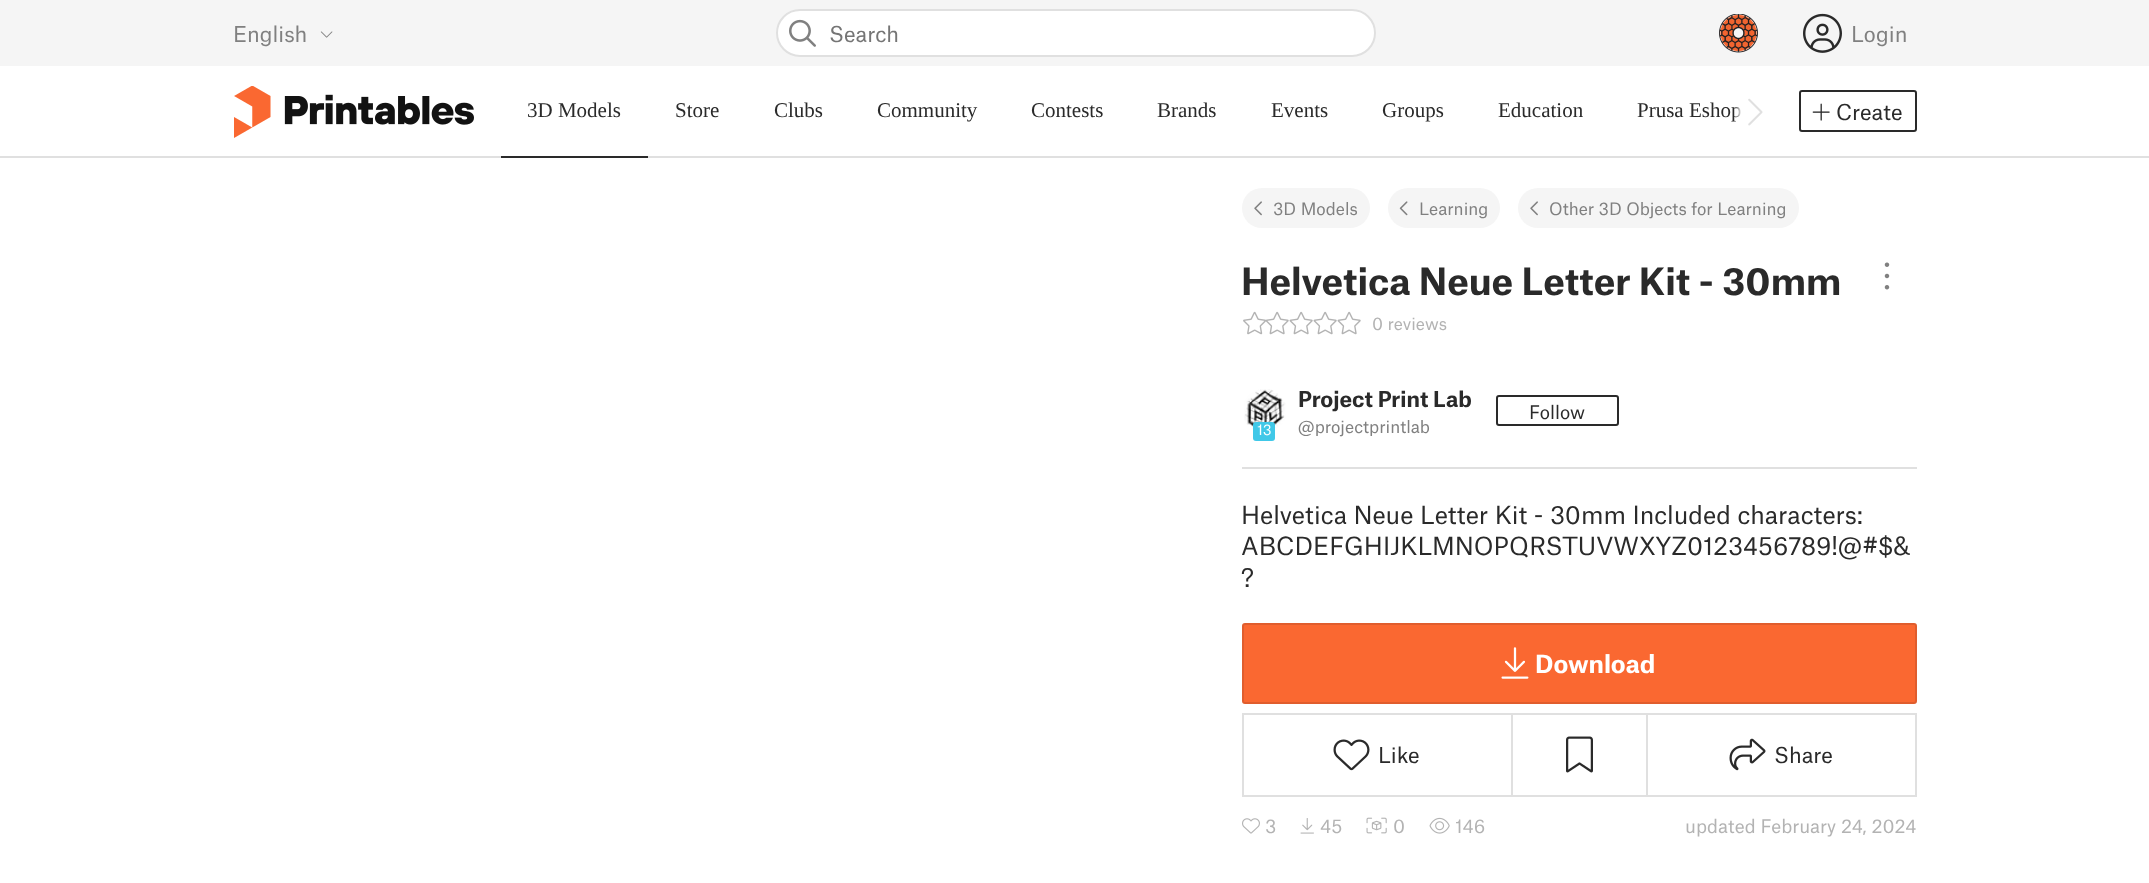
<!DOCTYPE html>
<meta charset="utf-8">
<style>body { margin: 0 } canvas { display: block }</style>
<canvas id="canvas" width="2149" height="883"></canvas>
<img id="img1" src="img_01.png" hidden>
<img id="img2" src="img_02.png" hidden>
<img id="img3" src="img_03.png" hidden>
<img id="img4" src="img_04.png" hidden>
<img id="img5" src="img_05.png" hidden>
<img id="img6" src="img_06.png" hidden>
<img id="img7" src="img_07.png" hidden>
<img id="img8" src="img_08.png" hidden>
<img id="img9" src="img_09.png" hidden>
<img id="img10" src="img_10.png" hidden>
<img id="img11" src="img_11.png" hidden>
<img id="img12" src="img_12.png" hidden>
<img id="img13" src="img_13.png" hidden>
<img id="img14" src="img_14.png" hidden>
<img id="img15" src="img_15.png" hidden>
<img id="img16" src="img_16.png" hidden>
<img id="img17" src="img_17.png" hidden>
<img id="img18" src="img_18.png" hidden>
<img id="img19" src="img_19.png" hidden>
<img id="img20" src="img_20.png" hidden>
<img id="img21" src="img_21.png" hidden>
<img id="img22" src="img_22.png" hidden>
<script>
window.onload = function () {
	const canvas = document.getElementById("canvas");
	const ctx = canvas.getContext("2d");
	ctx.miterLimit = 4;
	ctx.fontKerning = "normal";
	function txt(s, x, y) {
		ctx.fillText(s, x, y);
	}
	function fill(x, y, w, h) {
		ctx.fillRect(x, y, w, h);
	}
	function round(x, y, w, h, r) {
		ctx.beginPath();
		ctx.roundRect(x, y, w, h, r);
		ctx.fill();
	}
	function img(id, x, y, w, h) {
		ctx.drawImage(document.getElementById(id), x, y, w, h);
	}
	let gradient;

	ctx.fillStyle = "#FFFFFF";
	fill(0, 0, 2149, 883);
	ctx.fillStyle = "#F5F5F5";
	fill(0, 0, 2149, 66);
	img("img1", 320, 31, 13, 7);
	ctx.fillStyle = "#FFFFFF";
	ctx.beginPath();
	ctx.roundRect(777, 10, 598, 46, 23);
	ctx.fill();
	ctx.strokeStyle = "#E0E0E0";
	ctx.lineWidth = 2;
	ctx.stroke();
	img("img2", 789, 19, 27, 28);
	img("img3", 1719, 14, 39, 39);
	img("img4", 1803, 13, 39, 40);
	ctx.fillStyle = "#E0E0E0";
	fill(0, 156, 2149, 2);
	img("img5", 234, 86, 240, 52);
	ctx.fillStyle = "#2A2A2A";
	fill(501, 156, 147, 2);
	img("img6", 1748, 98, 15, 28);
	ctx.beginPath();
	ctx.roundRect(1800, 91, 116, 40, 2);
	ctx.strokeStyle = "#2A2A2A";
	ctx.stroke();
	img("img7", 1812, 103, 18, 18);
	ctx.fillStyle = "#F5F5F5";
	round(1242, 188, 128, 40, 20);
	img("img8", 1254, 201, 8, 15);
	round(1388, 188, 112, 40, 20);
	img("img9", 1399, 201, 9, 15);
	round(1518, 188, 281, 40, 20);
	img("img8", 1530, 201, 8, 15);
	img("img10", 1884, 262, 6, 28);
	img("img11", 1243, 311, 23, 24);
	img("img12", 1266, 311, 23, 24);
	img("img13", 1289, 311, 24, 24);
	img("img13", 1313, 311, 24, 24);
	img("img13", 1337, 311, 24, 24);
	img("img14", 1244, 389, 42, 42);
	ctx.fillStyle = "#40C8E8";
	round(1253, 422, 22, 19, 3);
	ctx.beginPath();
	ctx.roundRect(1497, 396, 121, 29, 2);
	ctx.stroke();
	ctx.fillStyle = "#E0E0E0";
	fill(1242, 467, 675, 2);
	ctx.fillStyle = "#FA6831";
	ctx.beginPath();
	ctx.roundRect(1243, 624, 673, 79, 2);
	ctx.fill();
	ctx.strokeStyle = "#E05D2D";
	ctx.stroke();
	img("img15", 1501, 647, 28, 32);
	ctx.strokeStyle = "#E0E0E0";
	ctx.strokeRect(1243, 714, 673, 82);
	img("img16", 1333, 739, 37, 32);
	ctx.fillStyle = "#E0E0E0";
	fill(1511, 714, 2, 81);
	img("img17", 1566, 736, 27, 37);
	fill(1646, 714, 2, 81);
	img("img18", 1729, 738, 37, 33);
	img("img19", 1242, 818, 18, 16);
	img("img20", 1300, 818, 14, 16);
	img("img21", 1366, 817, 21, 17);
	img("img22", 1429, 817, 21, 17);
	ctx.font = "21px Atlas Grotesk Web";
	ctx.fillStyle = "#808080";
	txt("English", 233, 42);
	ctx.fillStyle = "#757575";
	txt("Search", 829, 42);
	ctx.fillStyle = "#808080";
	txt("Login", 1851, 42);
	ctx.font = "21px Liberation Serif";
	ctx.fillStyle = "#2A2A2A";
	txt("3D Models", 527, 117);
	txt("Store", 675, 117);
	txt("Clubs", 774, 117);
	txt("Community", 877, 117);
	txt("Contests", 1031, 117);
	txt("Brands", 1157, 117);
	txt("Events", 1271, 117);
	txt("Groups", 1382, 117);
	txt("Education", 1498, 117);
	txt("Prusa Eshop", 1637, 117);
	gradient = ctx.createLinearGradient(1734, 111, 1773, 111);
	gradient.addColorStop(0, "rgba(255, 255, 255, 0)");
	gradient.addColorStop(0.2, "#FFFFFF");
	gradient.addColorStop(1, "#FFFFFF");
	ctx.fillStyle = gradient;
	fill(1734, 107, 7, 15);
	ctx.font = "21px Atlas Grotesk Web";
	ctx.fillStyle = "#2A2A2A";
	txt("Create", 1836, 120);
	ctx.font = "16.5px Atlas Grotesk Web";
	ctx.fillStyle = "#808080";
	txt("3D Models", 1273, 215);
	txt("Learning", 1419, 215);
	txt("Other 3D Objects for Learning", 1549, 215);
	ctx.font = "bold 36px Atlas Grotesk Web";
	ctx.fillStyle = "#2A2A2A";
	txt("Helvetica Neue Letter Kit - 30mm", 1241, 295);
	ctx.font = "16.5px Atlas Grotesk Web";
	ctx.fillStyle = "#B3B3B3";
	txt("0 reviews", 1372, 330);
	ctx.font = "14px Atlas Grotesk Web";
	ctx.fillStyle = "#FFFFFF";
	txt("13", 1257, 435);
	ctx.font = "bold 21px Atlas Grotesk Web";
	ctx.fillStyle = "#2A2A2A";
	txt("Project Print Lab", 1298, 407);
	ctx.font = "16.5px Atlas Grotesk Web";
	ctx.fillStyle = "#808080";
	txt("@projectprintlab", 1298, 433);
	ctx.font = "18px Atlas Grotesk Web";
	ctx.fillStyle = "#2A2A2A";
	txt("Follow", 1529, 419);
	ctx.font = "24px Atlas Grotesk Web";
	txt("Helvetica Neue Letter Kit - 30mm Included characters:", 1241, 524);
	txt("ABCDEFGHIJKLMNOPQRSTUVWXYZ0123456789!@#$&", 1241, 555);
	txt("?", 1241, 587);
	ctx.font = "bold 24px Atlas Grotesk Web";
	ctx.fillStyle = "#FFFFFF";
	txt("Download", 1535, 673);
	ctx.font = "21px Atlas Grotesk Web";
	ctx.fillStyle = "#2A2A2A";
	txt("Like", 1378, 763);
	txt("Share", 1774, 763);
	ctx.font = "18px Atlas Grotesk Web";
	ctx.fillStyle = "#B3B3B3";
	txt("3", 1265, 833);
	txt("45", 1320, 833);
	txt("0", 1393, 833);
	txt("146", 1455, 833);
	txt("updated February 24, 2024", 1685, 833);
};
</script>
